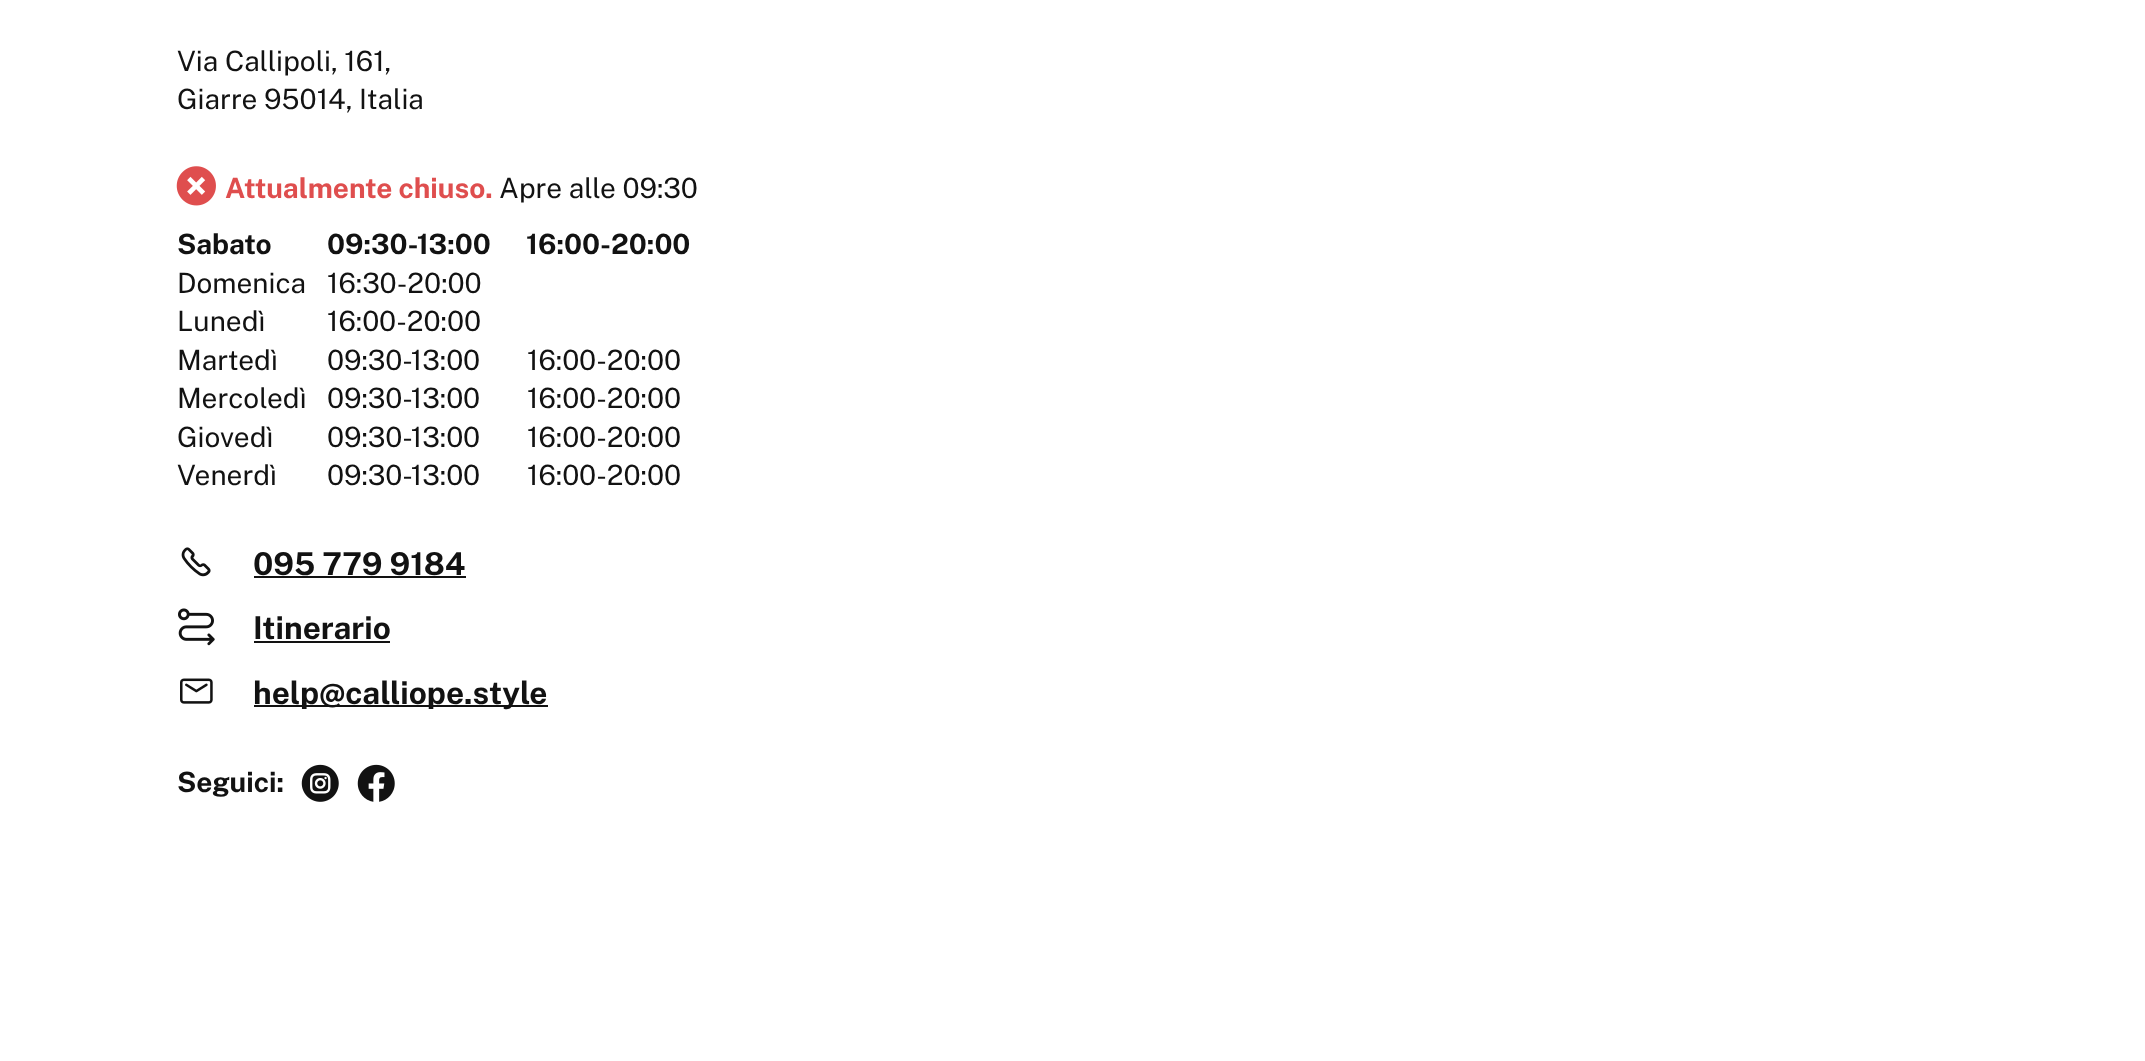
<!DOCTYPE html>
<meta charset="utf-8">
<style>body { margin: 0 } canvas { display: block }</style>
<canvas id="canvas" width="2145" height="1061"></canvas>
<img id="img1" src="img_01.png" hidden>
<img id="img2" src="img_02.png" hidden>
<img id="img3" src="img_03.png" hidden>
<img id="img4" src="img_04.png" hidden>
<img id="img5" src="img_05.png" hidden>
<img id="img6" src="img_06.png" hidden>
<script>
window.onload = function () {
	const canvas = document.getElementById("canvas");
	const ctx = canvas.getContext("2d");
	ctx.miterLimit = 4;
	ctx.fontKerning = "normal";
	function txt(s, x, y) {
		ctx.fillText(s, x, y);
	}
	function fill(x, y, w, h) {
		ctx.fillRect(x, y, w, h);
	}
	function img(id, x, y, w, h) {
		ctx.drawImage(document.getElementById(id), x, y, w, h);
	}

	ctx.fillStyle = "#FFFFFF";
	fill(0, 0, 2145, 1061);
	img("img1", 176, 166, 40, 40);
	img("img2", 181, 547, 30, 30);
	ctx.fillStyle = "#121212";
	fill(254, 576, 212, 2);
	img("img3", 178, 608, 37, 38);
	fill(254, 641, 136, 2);
	img("img4", 180, 678, 33, 26);
	fill(254, 705, 294, 2);
	img("img5", 301, 764, 38, 38);
	img("img6", 357, 764, 38, 38);
	ctx.font = "28px Public Sans";
	txt("Via Callipoli, 161,", 177, 71);
	txt("Giarre 95014, Italia", 177, 109);
	ctx.font = "bold 28px Public Sans";
	ctx.fillStyle = "#DF4E4E";
	txt("Attualmente chiuso.", 225, 198);
	ctx.font = "28px Public Sans";
	ctx.fillStyle = "#121212";
	txt("Apre alle 09:30", 499, 198);
	ctx.font = "bold 28px Public Sans";
	txt("Sabato", 177, 254);
	txt("09:30-13:00", 327, 254);
	txt("16:00-20:00", 526, 254);
	ctx.font = "28px Public Sans";
	txt("Domenica", 177, 293);
	txt("16:30-20:00", 327, 293);
	txt("Lunedì", 177, 331);
	txt("16:00-20:00", 327, 331);
	txt("Martedì", 177, 370);
	txt("09:30-13:00", 327, 370);
	txt("16:00-20:00", 527, 370);
	txt("Mercoledì", 177, 408);
	txt("09:30-13:00", 327, 408);
	txt("16:00-20:00", 527, 408);
	txt("Giovedì", 177, 447);
	txt("09:30-13:00", 327, 447);
	txt("16:00-20:00", 527, 447);
	txt("Venerdì", 177, 485);
	txt("09:30-13:00", 327, 485);
	txt("16:00-20:00", 527, 485);
	ctx.font = "bold 31.5px Public Sans";
	txt("095 779 9184", 253, 575);
	txt("Itinerario", 253, 639);
	txt("help@calliope.style", 253, 704);
	ctx.font = "bold 28px Public Sans";
	txt("Seguici:", 177, 792);
};
</script>
